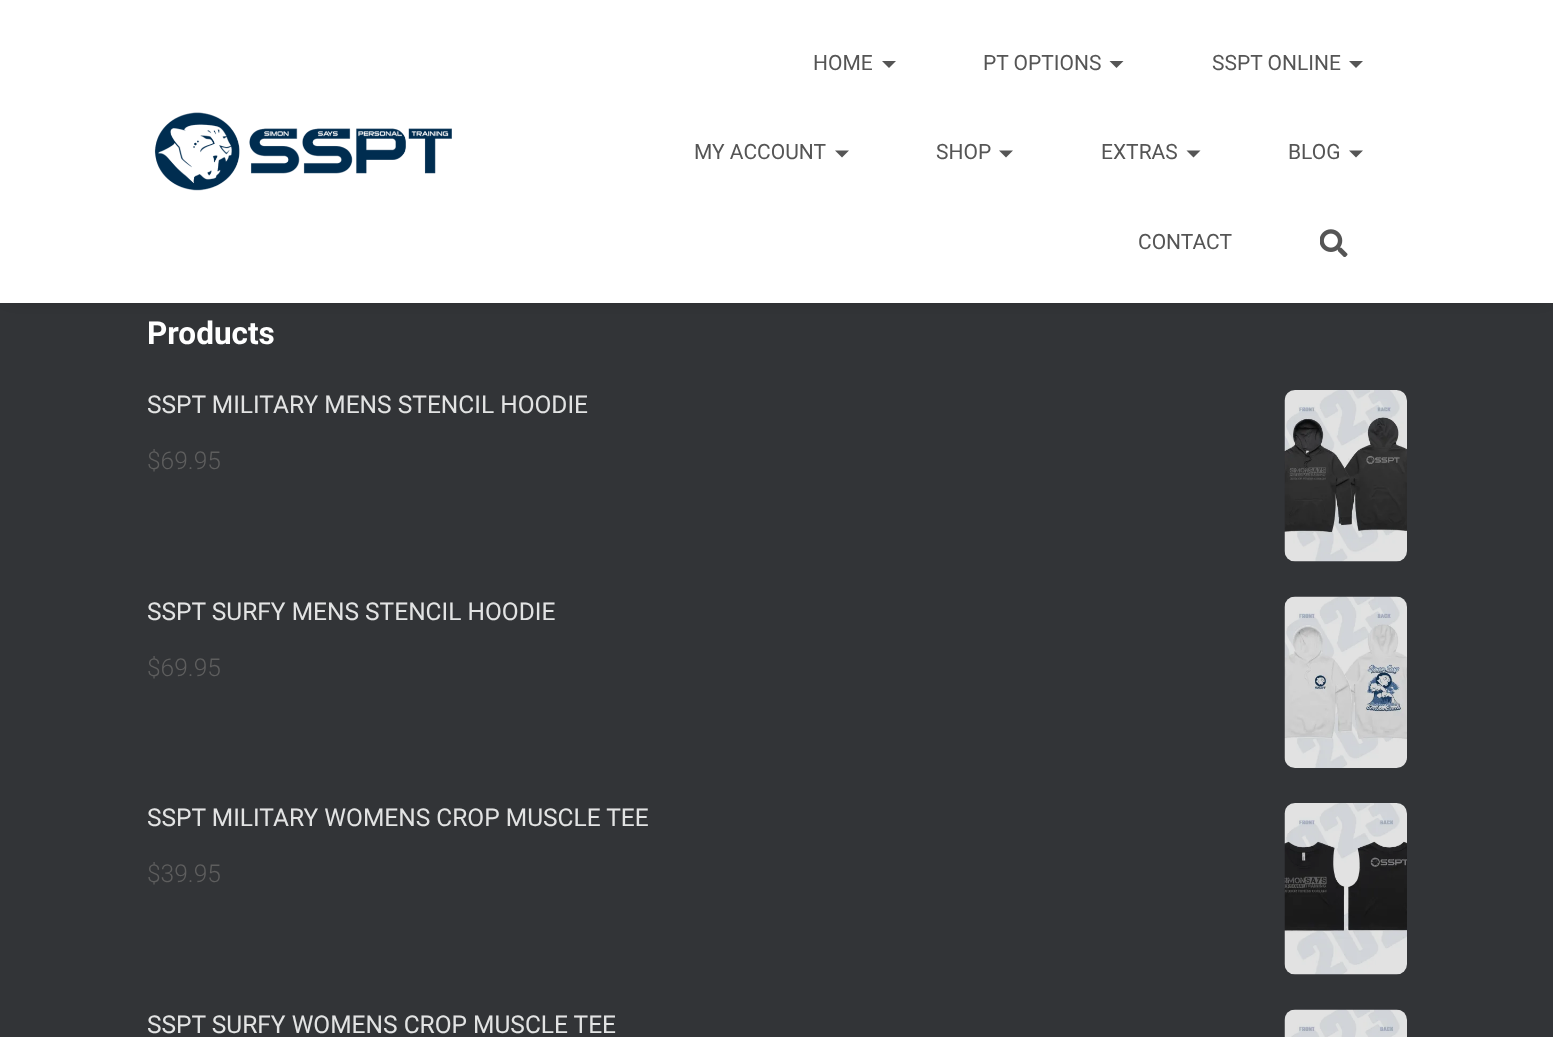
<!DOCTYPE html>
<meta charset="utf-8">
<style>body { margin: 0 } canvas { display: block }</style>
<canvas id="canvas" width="1553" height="1037"></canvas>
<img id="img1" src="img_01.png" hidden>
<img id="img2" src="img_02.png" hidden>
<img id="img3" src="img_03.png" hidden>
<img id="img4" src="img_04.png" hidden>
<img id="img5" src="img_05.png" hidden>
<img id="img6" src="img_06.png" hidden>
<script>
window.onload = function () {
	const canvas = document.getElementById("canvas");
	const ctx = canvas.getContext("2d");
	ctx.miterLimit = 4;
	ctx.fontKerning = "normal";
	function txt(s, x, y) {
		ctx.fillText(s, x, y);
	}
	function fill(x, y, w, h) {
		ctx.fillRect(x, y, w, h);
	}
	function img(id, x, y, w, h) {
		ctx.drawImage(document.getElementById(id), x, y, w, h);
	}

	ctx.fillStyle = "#323437";
	fill(0, 0, 1553, 1037);
	ctx.fillStyle = "rgba(0, 0, 0, 0.42)";
	ctx.filter = "blur(9px)";
	ctx.beginPath();
	ctx.rect(11, 12, 1533, 282);
	ctx.fill();
	ctx.filter = "none";
	ctx.fillStyle = "#FFFFFF";
	fill(0, 0, 1553, 303);
	img("img1", 154, 112, 298, 79);
	ctx.fillStyle = "#555555";
	ctx.beginPath();
	ctx.moveTo(882, 61);
	ctx.lineTo(896, 61);
	ctx.lineTo(889, 68);
	ctx.closePath();
	ctx.fill();
	ctx.beginPath();
	ctx.moveTo(1109.5, 61);
	ctx.lineTo(1123.5, 61);
	ctx.lineTo(1116.5, 68);
	ctx.closePath();
	ctx.fill();
	ctx.beginPath();
	ctx.moveTo(1349, 61);
	ctx.lineTo(1363, 61);
	ctx.lineTo(1356, 68);
	ctx.closePath();
	ctx.fill();
	ctx.beginPath();
	ctx.moveTo(835, 150.5);
	ctx.lineTo(849, 150.5);
	ctx.lineTo(842, 157.5);
	ctx.closePath();
	ctx.fill();
	ctx.beginPath();
	ctx.moveTo(999, 150.5);
	ctx.lineTo(1013, 150.5);
	ctx.lineTo(1006, 157.5);
	ctx.closePath();
	ctx.fill();
	ctx.beginPath();
	ctx.moveTo(1186.5, 150.5);
	ctx.lineTo(1200.5, 150.5);
	ctx.lineTo(1193.5, 157.5);
	ctx.closePath();
	ctx.fill();
	ctx.beginPath();
	ctx.moveTo(1349, 150.5);
	ctx.lineTo(1363, 150.5);
	ctx.lineTo(1356, 157.5);
	ctx.closePath();
	ctx.fill();
	img("img2", 1320, 229, 28, 28);
	img("img3", 1284, 390, 123, 172);
	img("img4", 1284, 596, 123, 172);
	img("img5", 1284, 803, 123, 172);
	img("img6", 1284, 1009, 123, 28);
	ctx.font = "21px Roboto";
	txt("HOME", 813, 70);
	txt("PT OPTIONS", 983, 70);
	txt("SSPT ONLINE", 1212, 70);
	txt("MY ACCOUNT", 694, 159);
	txt("SHOP", 936, 159);
	txt("EXTRAS", 1101, 159);
	txt("BLOG", 1288, 159);
	txt("CONTACT", 1138, 249);
	ctx.font = "bold 31.5px Roboto";
	ctx.fillStyle = "#FFFFFF";
	txt("Products", 147, 344);
	ctx.font = "24.5px Roboto";
	ctx.fillStyle = "#E2E3E3";
	txt("SSPT MILITARY MENS STENCIL HOODIE", 147, 413);
	ctx.font = "300 24.5px Roboto";
	ctx.fillStyle = "#5E5E5E";
	txt("$69.95", 147, 469);
	ctx.font = "24.5px Roboto";
	ctx.fillStyle = "#E2E3E3";
	txt("SSPT SURFY MENS STENCIL HOODIE", 147, 620);
	ctx.font = "300 24.5px Roboto";
	ctx.fillStyle = "#5E5E5E";
	txt("$69.95", 147, 676);
	ctx.font = "24.5px Roboto";
	ctx.fillStyle = "#E2E3E3";
	txt("SSPT MILITARY WOMENS CROP MUSCLE TEE", 147, 826);
	ctx.font = "300 24.5px Roboto";
	ctx.fillStyle = "#5E5E5E";
	txt("$39.95", 147, 882);
	ctx.font = "24.5px Roboto";
	ctx.fillStyle = "#E2E3E3";
	txt("SSPT SURFY WOMENS CROP MUSCLE TEE", 147, 1033);
};
</script>
